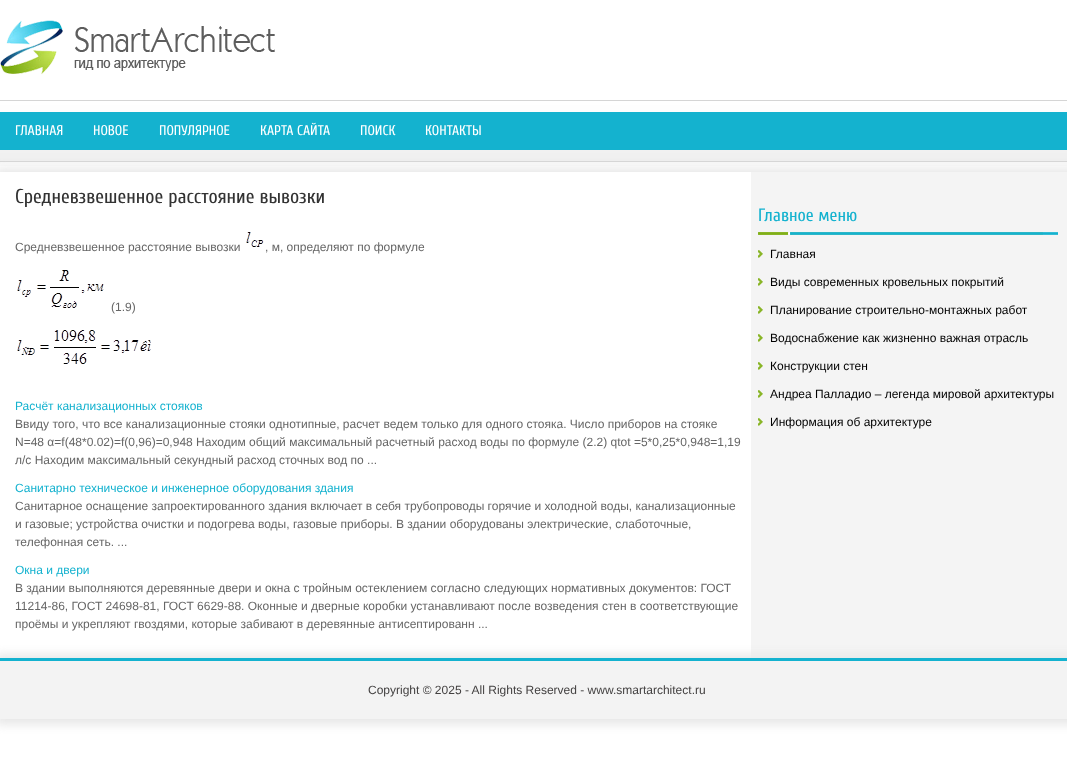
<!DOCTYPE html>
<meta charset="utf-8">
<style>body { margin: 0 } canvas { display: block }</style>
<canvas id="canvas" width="1067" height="782"></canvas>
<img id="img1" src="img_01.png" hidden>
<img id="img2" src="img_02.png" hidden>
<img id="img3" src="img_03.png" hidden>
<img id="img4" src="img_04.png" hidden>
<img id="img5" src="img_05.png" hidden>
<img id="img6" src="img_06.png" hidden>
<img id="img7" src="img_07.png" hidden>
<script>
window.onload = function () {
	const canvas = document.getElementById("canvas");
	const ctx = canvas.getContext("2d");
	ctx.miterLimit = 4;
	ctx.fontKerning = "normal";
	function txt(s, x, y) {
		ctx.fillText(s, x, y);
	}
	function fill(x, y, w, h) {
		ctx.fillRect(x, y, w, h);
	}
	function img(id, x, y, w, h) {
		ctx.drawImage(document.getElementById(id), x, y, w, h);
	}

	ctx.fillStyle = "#FFFFFF";
	fill(0, 0, 1067, 782);
	img("img1", 0, 100, 1067, 66);
	img("img2", 0, 20, 275, 55);
	ctx.fillStyle = "#14B2CF";
	fill(0, 112, 1067, 38);
	ctx.save();
	ctx.beginPath();
	ctx.rect(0, 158, 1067, 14);
	ctx.clip();
	ctx.fillStyle = "#E8E8E8";
	ctx.filter = "blur(5px)";
	ctx.beginPath();
	ctx.rect(-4, 168, 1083, 496);
	ctx.fill();
	ctx.filter = "none";
	ctx.restore();
	ctx.fillStyle = "#F4F4F4";
	fill(751, 172, 316, 486);
	img("img3", 246, 232, 18, 15);
	img("img4", 17, 270, 87, 38);
	img("img5", 17, 330, 134, 34);
	img("img6", 758, 232, 300, 3);
	img("img7", 758, 250, 5, 8);
	img("img7", 758, 278, 5, 8);
	img("img7", 758, 306, 5, 8);
	img("img7", 758, 334, 5, 8);
	img("img7", 758, 362, 5, 8);
	img("img7", 758, 390, 5, 8);
	img("img7", 758, 418, 5, 8);
	ctx.fillStyle = "#E8E8E8";
	ctx.filter = "blur(5px)";
	ctx.beginPath();
	ctx.rect(-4, 654, 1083, 71);
	ctx.fill();
	ctx.filter = "none";
	ctx.fillStyle = "#F3F3F3";
	fill(0, 661, 1067, 58);
	ctx.fillStyle = "#14B2CF";
	fill(0, 658, 1067, 3);
	ctx.font = "14px Cuprum";
	ctx.fillStyle = "#FFFFFF";
	txt("ГЛАВНАЯ", 15, 135);
	txt("НОВОЕ", 93, 135);
	txt("ПОПУЛЯРНОЕ", 159, 135);
	txt("КАРТА САЙТА", 260, 135);
	txt("ПОИСК", 360, 135);
	txt("КОНТАКТЫ", 425, 135);
	ctx.font = "20px Cuprum";
	ctx.fillStyle = "#333333";
	txt("Средневзвешенное расстояние вывозки", 15, 203);
	ctx.font = "12px Liberation Sans";
	ctx.fillStyle = "#666666";
	txt("Средневзвешенное расстояние вывозки", 15, 251);
	txt(", м, определяют по формуле", 265, 251);
	txt("(1.9)", 111, 311);
	ctx.fillStyle = "#14B2CF";
	txt("Расчёт канализационных стояков", 15, 410);
	ctx.fillStyle = "#666666";
	txt("Ввиду того, что все канализационные стояки однотипные, расчет ведем только для одного стояка. Число приборов на стояке", 15, 428);
	txt("N=48 α=f(48*0.02)=f(0,96)=0,948 Находим общий максимальный расчетный расход воды по формуле (2.2) qtot =5*0,25*0,948=1,19", 15, 446);
	txt("л/с Находим максимальный секундный расход сточных вод по ...", 15, 464);
	ctx.fillStyle = "#14B2CF";
	txt("Санитарно техническое и инженерное оборудования здания", 15, 492);
	ctx.fillStyle = "#666666";
	txt("Санитарное оснащение запроектированного здания включает в себя трубопроводы горячие и холодной воды, канализационные", 15, 510);
	txt("и газовые; устройства очистки и подогрева воды, газовые приборы. В здании оборудованы электрические, слаботочные,", 15, 528);
	txt("телефонная сеть. ...", 15, 546);
	ctx.fillStyle = "#14B2CF";
	txt("Окна и двери", 15, 574);
	ctx.fillStyle = "#666666";
	txt("В здании выполняются деревянные двери и окна с тройным остеклением согласно следующих нормативных документов: ГОСТ", 15, 592);
	txt("11214-86, ГОСТ 24698-81, ГОСТ 6629-88. Оконные и дверные коробки устанавливают после возведения стен в соответствующие", 15, 610);
	txt("проёмы и укрепляют гвоздями, которые забивают в деревянные антисептированн ...", 15, 628);
	ctx.font = "18px Cuprum";
	ctx.fillStyle = "#14B2CF";
	txt("Главное меню", 758, 221);
	ctx.font = "12px Liberation Sans";
	ctx.fillStyle = "#000000";
	txt("Главная", 770, 258);
	txt("Виды современных кровельных покрытий", 770, 286);
	txt("Планирование строительно-монтажных работ", 770, 314);
	txt("Водоснабжение как жизненно важная отрасль", 770, 342);
	txt("Конструкции стен", 770, 370);
	txt("Андреа Палладио – легенда мировой архитектуры", 770, 398);
	txt("Информация об архитектуре", 770, 426);
	ctx.fillStyle = "#434141";
	txt("Copyright © 2025 - All Rights Reserved - www.smartarchitect.ru", 368, 694);
};
</script>
